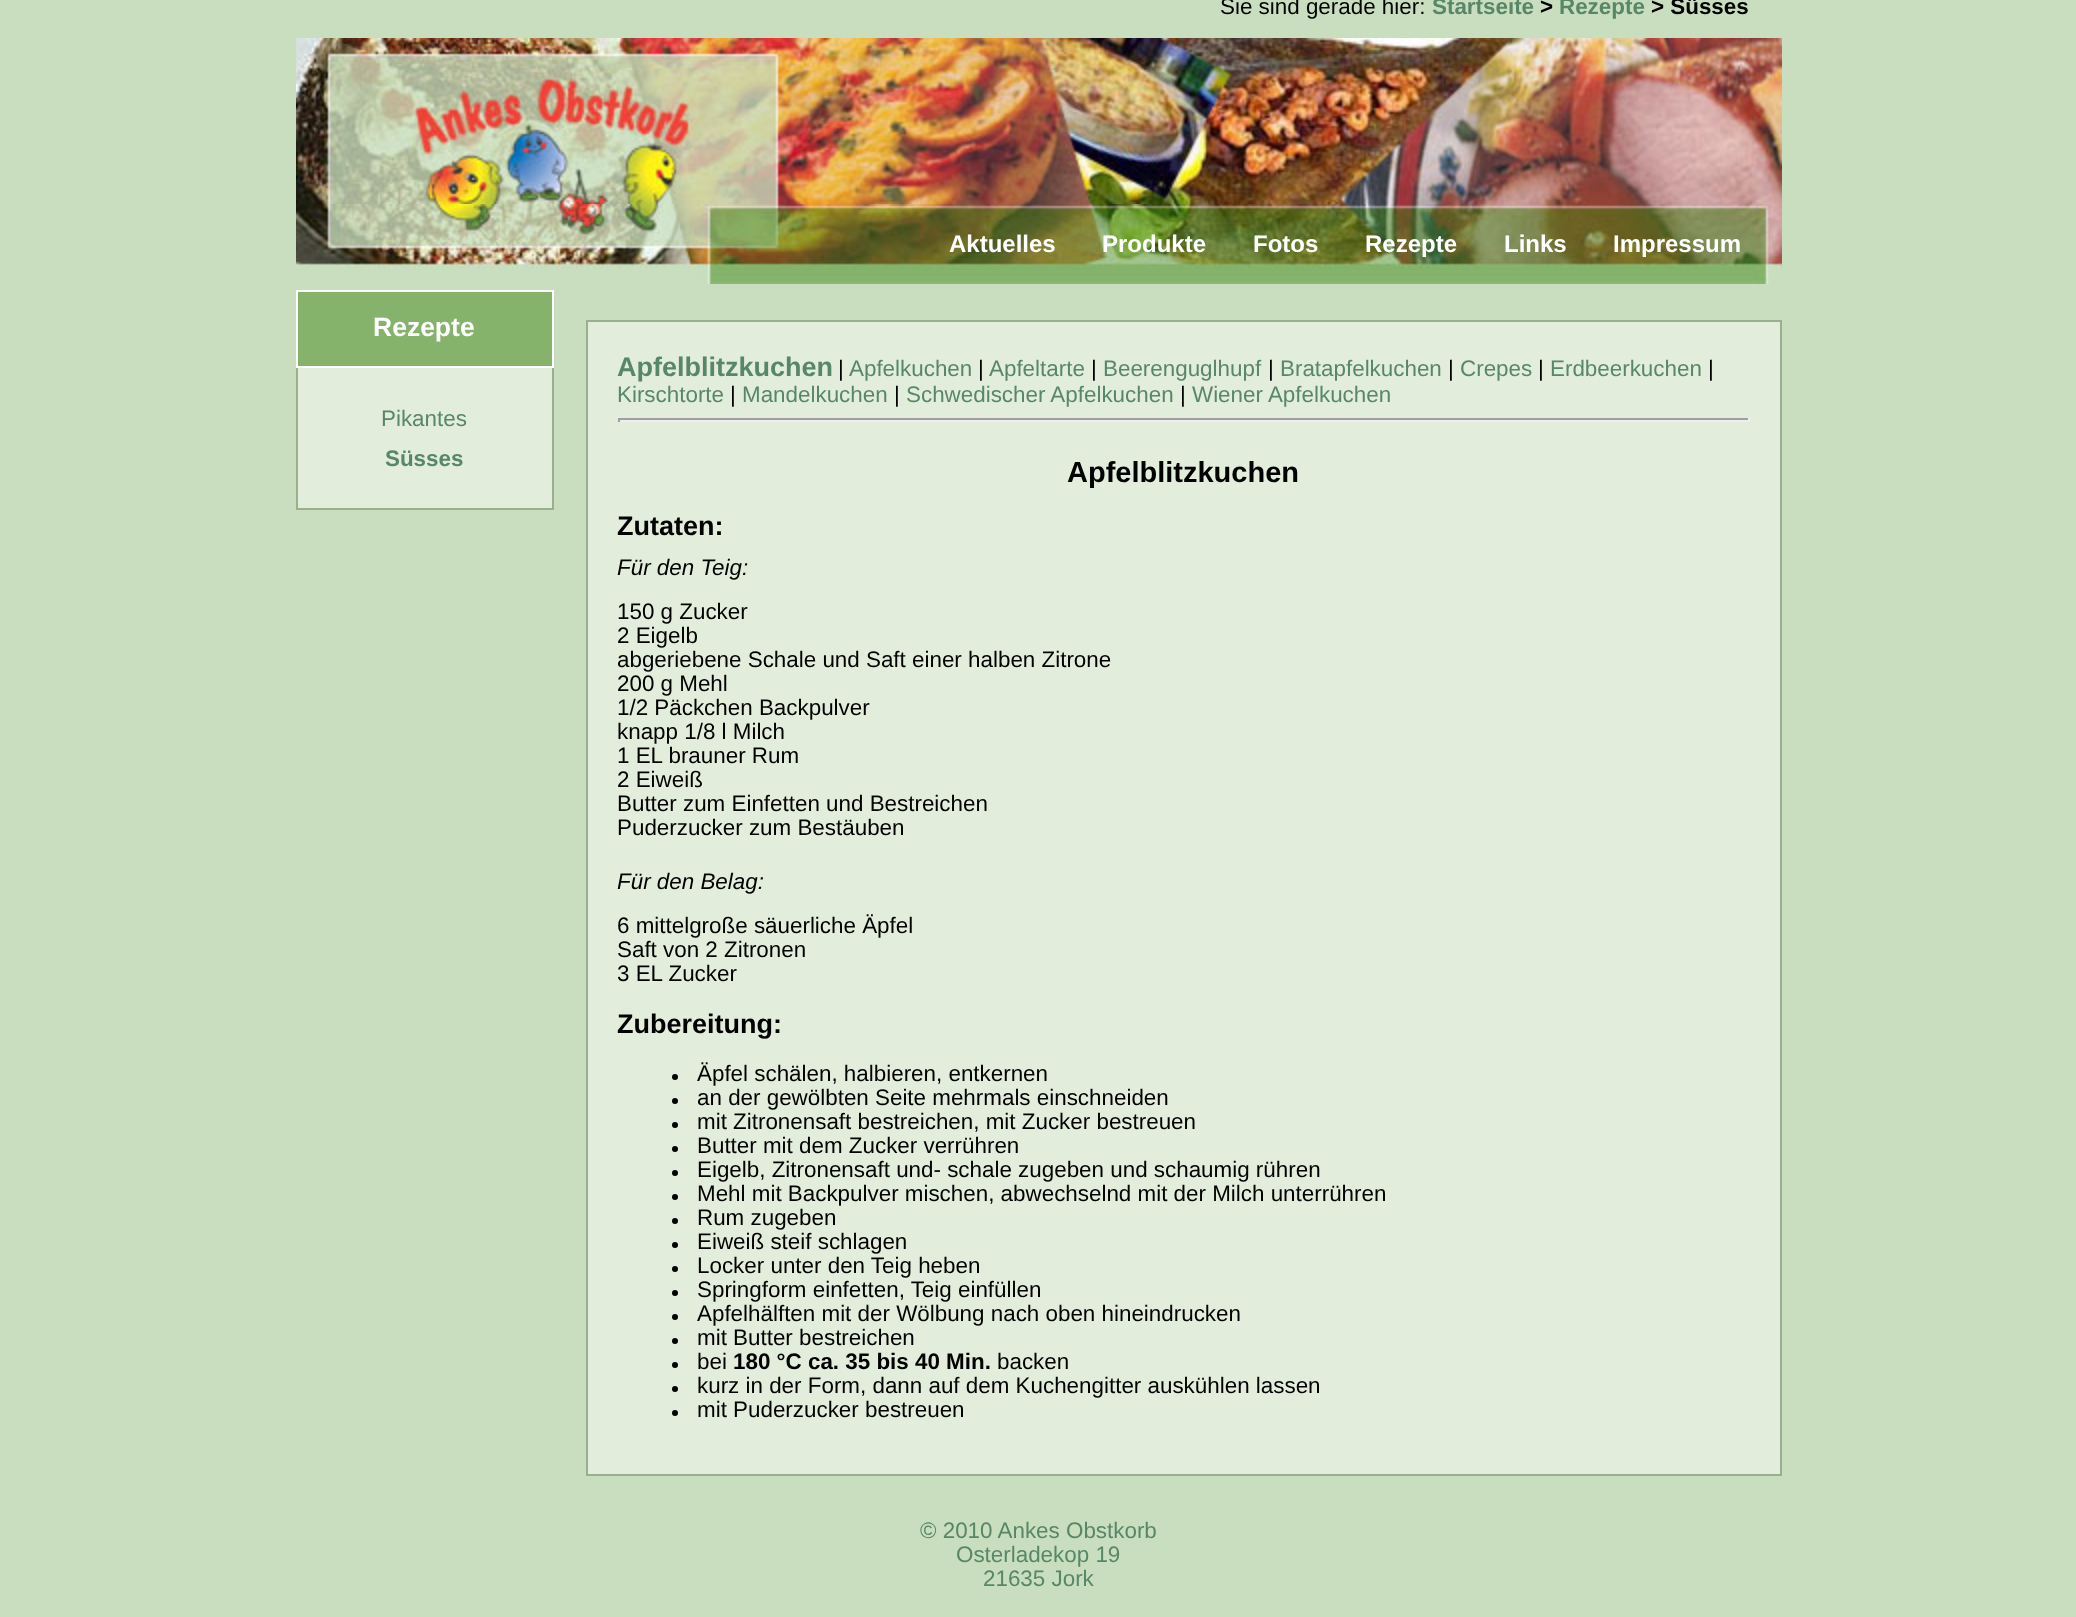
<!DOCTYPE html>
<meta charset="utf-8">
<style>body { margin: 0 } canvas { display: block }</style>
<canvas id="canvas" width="2076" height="1617"></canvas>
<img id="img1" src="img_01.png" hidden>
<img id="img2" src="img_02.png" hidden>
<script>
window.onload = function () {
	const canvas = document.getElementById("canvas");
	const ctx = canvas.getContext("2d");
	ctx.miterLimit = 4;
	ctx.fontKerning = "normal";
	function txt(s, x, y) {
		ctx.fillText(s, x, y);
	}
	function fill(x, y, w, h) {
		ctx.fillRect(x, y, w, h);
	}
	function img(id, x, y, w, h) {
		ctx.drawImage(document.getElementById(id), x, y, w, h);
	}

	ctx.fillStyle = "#C9DEBE";
	fill(0, 0, 2076, 1617);
	img("img1", 296, 38, 1486, 166);
	img("img2", 296, 204, 1486, 80);
	ctx.fillStyle = "#85B36B";
	ctx.beginPath();
	ctx.rect(297, 291, 256, 76);
	ctx.fill();
	ctx.strokeStyle = "#FFFFFF";
	ctx.lineWidth = 2;
	ctx.stroke();
	ctx.fillStyle = "#E2EDDC";
	fill(298, 368, 254, 140);
	ctx.fillStyle = "#99AF8D";
	fill(552, 368, 2, 142);
	fill(296, 508, 258, 2);
	fill(296, 368, 2, 142);
	ctx.fillStyle = "#E2EDDC";
	ctx.beginPath();
	ctx.rect(587, 321, 1194, 1154);
	ctx.fill();
	ctx.strokeStyle = "#99AF8D";
	ctx.stroke();
	ctx.fillStyle = "#9F9F9F";
	fill(618, 418, 1132, 2);
	ctx.fillStyle = "#EEEEEE";
	fill(1748, 418, 2, 4);
	fill(618, 420, 1132, 2);
	ctx.fillStyle = "#9F9F9F";
	fill(618, 418, 2, 4);
	ctx.fillStyle = "#000000";
	ctx.beginPath();
	ctx.arc(675, 1077, 3, 0, Math.PI * 2);
	ctx.fill();
	ctx.beginPath();
	ctx.arc(675, 1101, 3, 0, Math.PI * 2);
	ctx.fill();
	ctx.beginPath();
	ctx.arc(675, 1125, 3, 0, Math.PI * 2);
	ctx.fill();
	ctx.beginPath();
	ctx.arc(675, 1149, 3, 0, Math.PI * 2);
	ctx.fill();
	ctx.beginPath();
	ctx.arc(675, 1173, 3, 0, Math.PI * 2);
	ctx.fill();
	ctx.beginPath();
	ctx.arc(675, 1197, 3, 0, Math.PI * 2);
	ctx.fill();
	ctx.beginPath();
	ctx.arc(675, 1221, 3, 0, Math.PI * 2);
	ctx.fill();
	ctx.beginPath();
	ctx.arc(675, 1245, 3, 0, Math.PI * 2);
	ctx.fill();
	ctx.beginPath();
	ctx.arc(675, 1269, 3, 0, Math.PI * 2);
	ctx.fill();
	ctx.beginPath();
	ctx.arc(675, 1293, 3, 0, Math.PI * 2);
	ctx.fill();
	ctx.beginPath();
	ctx.arc(675, 1317, 3, 0, Math.PI * 2);
	ctx.fill();
	ctx.beginPath();
	ctx.arc(675, 1341, 3, 0, Math.PI * 2);
	ctx.fill();
	ctx.beginPath();
	ctx.arc(675, 1365, 3, 0, Math.PI * 2);
	ctx.fill();
	ctx.beginPath();
	ctx.arc(675, 1389, 3, 0, Math.PI * 2);
	ctx.fill();
	ctx.beginPath();
	ctx.arc(675, 1413, 3, 0, Math.PI * 2);
	ctx.fill();
	ctx.font = "22.4px Liberation Sans";
	txt("Sie sind gerade hier:", 1220, 14);
	ctx.font = "bold 22.4px Liberation Sans";
	ctx.fillStyle = "#588768";
	txt("Startseite", 1432, 14);
	ctx.fillStyle = "#000000";
	txt(">", 1540, 14);
	ctx.fillStyle = "#588768";
	txt("Rezepte", 1559, 14);
	ctx.fillStyle = "#000000";
	txt("> Süsses", 1651, 14);
	ctx.font = "bold 24px Liberation Sans";
	ctx.fillStyle = "#FFFFFF";
	txt("Aktuelles", 949, 252);
	txt("Produkte", 1102, 252);
	txt("Fotos", 1253, 252);
	txt("Rezepte", 1365, 252);
	txt("Links", 1504, 252);
	txt("Impressum", 1613, 252);
	ctx.font = "bold 26.5px Liberation Sans";
	txt("Rezepte", 373, 336);
	ctx.font = "22.4px Liberation Sans";
	ctx.fillStyle = "#588768";
	txt("Pikantes", 381, 426);
	ctx.font = "bold 22.4px Liberation Sans";
	txt("Süsses", 385, 466);
	ctx.font = "bold 27px Liberation Sans";
	txt("Apfelblitzkuchen", 617, 376);
	ctx.font = "22.4px Liberation Sans";
	ctx.fillStyle = "#000000";
	txt("|", 838, 376);
	ctx.fillStyle = "#588768";
	txt("Apfelkuchen", 849, 376);
	ctx.fillStyle = "#000000";
	txt("|", 978, 376);
	ctx.fillStyle = "#588768";
	txt("Apfeltarte", 989, 376);
	ctx.fillStyle = "#000000";
	txt("|", 1091, 376);
	ctx.fillStyle = "#588768";
	txt("Beerenguglhupf", 1103, 376);
	ctx.fillStyle = "#000000";
	txt("|", 1268, 376);
	ctx.fillStyle = "#588768";
	txt("Bratapfelkuchen", 1280, 376);
	ctx.fillStyle = "#000000";
	txt("|", 1448, 376);
	ctx.fillStyle = "#588768";
	txt("Crepes", 1460, 376);
	ctx.fillStyle = "#000000";
	txt("|", 1538, 376);
	ctx.fillStyle = "#588768";
	txt("Erdbeerkuchen", 1550, 376);
	ctx.fillStyle = "#000000";
	txt("|", 1708, 376);
	ctx.fillStyle = "#588768";
	txt("Kirschtorte", 617, 402);
	ctx.fillStyle = "#000000";
	txt("|", 730, 402);
	ctx.fillStyle = "#588768";
	txt("Mandelkuchen", 742, 402);
	ctx.fillStyle = "#000000";
	txt("|", 894, 402);
	ctx.fillStyle = "#588768";
	txt("Schwedischer Apfelkuchen", 906, 402);
	ctx.fillStyle = "#000000";
	txt("|", 1180, 402);
	ctx.fillStyle = "#588768";
	txt("Wiener Apfelkuchen", 1192, 402);
	ctx.font = "bold 29px Liberation Sans";
	ctx.fillStyle = "#000000";
	txt("Apfelblitzkuchen", 1067, 482);
	ctx.font = "bold 27px Liberation Sans";
	txt("Zutaten:", 617, 535);
	ctx.font = "italic 22.4px Liberation Sans";
	txt("Für den Teig:", 617, 575);
	ctx.font = "22.4px Liberation Sans";
	txt("150 g Zucker", 617, 619);
	txt("2 Eigelb", 617, 643);
	txt("abgeriebene Schale und Saft einer halben Zitrone", 617, 667);
	txt("200 g Mehl", 617, 691);
	txt("1/2 Päckchen Backpulver", 617, 715);
	txt("knapp 1/8 l Milch", 617, 739);
	txt("1 EL brauner Rum", 617, 763);
	txt("2 Eiweiß", 617, 787);
	txt("Butter zum Einfetten und Bestreichen", 617, 811);
	txt("Puderzucker zum Bestäuben", 617, 835);
	ctx.font = "italic 22.4px Liberation Sans";
	txt("Für den Belag:", 617, 889);
	ctx.font = "22.4px Liberation Sans";
	txt("6 mittelgroße säuerliche Äpfel", 617, 933);
	txt("Saft von 2 Zitronen", 617, 957);
	txt("3 EL Zucker", 617, 981);
	ctx.font = "bold 27px Liberation Sans";
	txt("Zubereitung:", 617, 1033);
	ctx.font = "22.4px Liberation Sans";
	txt("Äpfel schälen, halbieren, entkernen", 697, 1081);
	txt("an der gewölbten Seite mehrmals einschneiden", 697, 1105);
	txt("mit Zitronensaft bestreichen, mit Zucker bestreuen", 697, 1129);
	txt("Butter mit dem Zucker verrühren", 697, 1153);
	txt("Eigelb, Zitronensaft und- schale zugeben und schaumig rühren", 697, 1177);
	txt("Mehl mit Backpulver mischen, abwechselnd mit der Milch unterrühren", 697, 1201);
	txt("Rum zugeben", 697, 1225);
	txt("Eiweiß steif schlagen", 697, 1249);
	txt("Locker unter den Teig heben", 697, 1273);
	txt("Springform einfetten, Teig einfüllen", 697, 1297);
	txt("Apfelhälften mit der Wölbung nach oben hineindrucken", 697, 1321);
	txt("mit Butter bestreichen", 697, 1345);
	txt("bei", 697, 1369);
	ctx.font = "bold 22.4px Liberation Sans";
	txt("180 °C ca. 35 bis 40 Min.", 733, 1369);
	ctx.font = "22.4px Liberation Sans";
	txt("backen", 997, 1369);
	txt("kurz in der Form, dann auf dem Kuchengitter auskühlen lassen", 697, 1393);
	txt("mit Puderzucker bestreuen", 697, 1417);
	ctx.fillStyle = "#588768";
	txt("© 2010 Ankes Obstkorb", 920, 1538);
	txt("Osterladekop 19", 956, 1562);
	txt("21635 Jork", 983, 1586);
};
</script>
